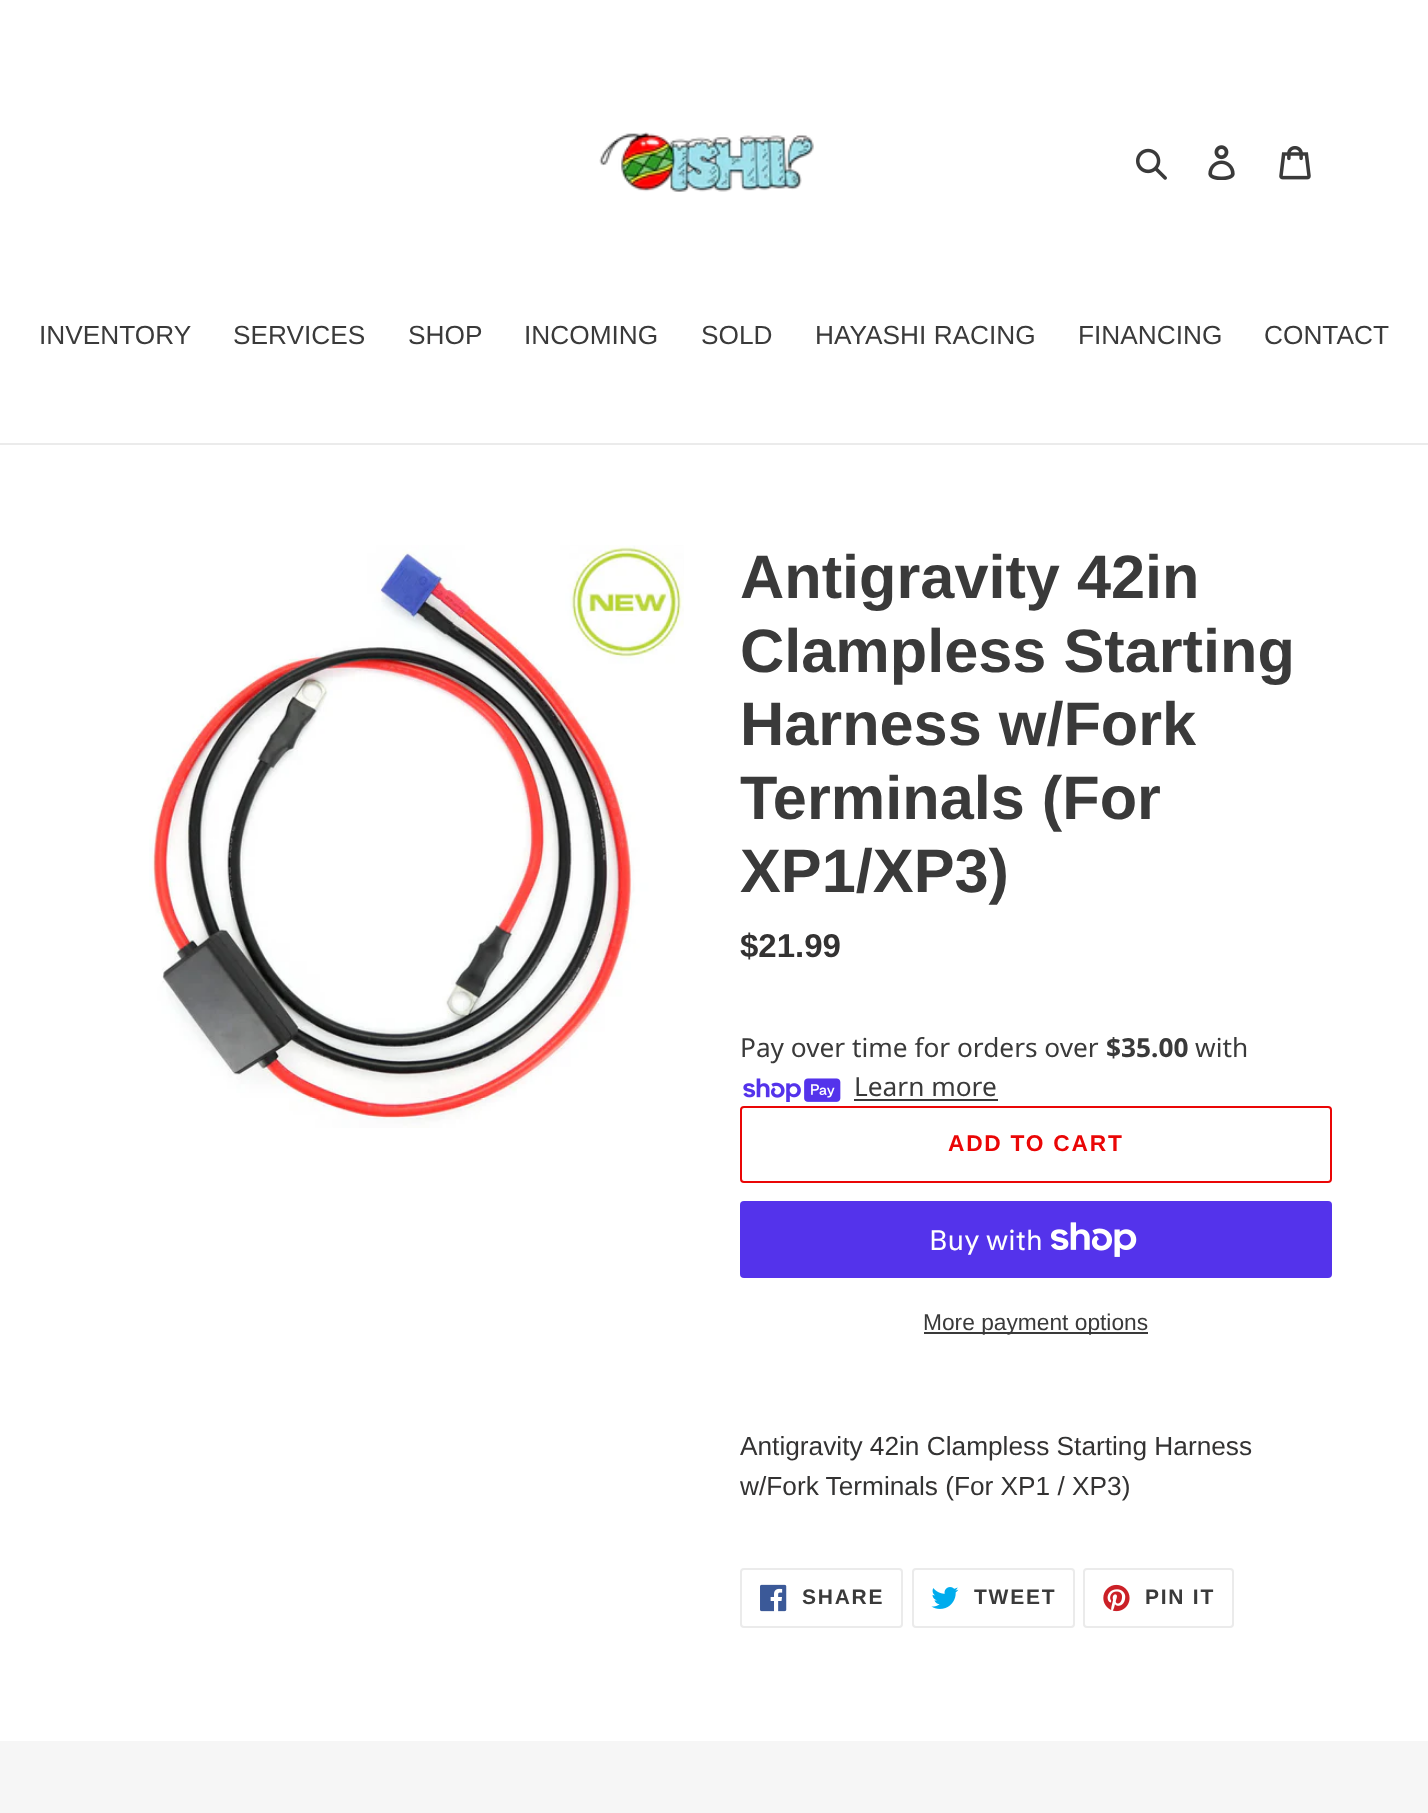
<!DOCTYPE html>
<meta charset="utf-8">
<style>body { margin: 0 } canvas { display: block }</style>
<canvas id="canvas" width="1428" height="1813"></canvas>
<img id="img1" src="img_01.png" hidden>
<img id="img2" src="img_02.png" hidden>
<img id="img3" src="img_03.png" hidden>
<img id="img4" src="img_04.png" hidden>
<img id="img5" src="img_05.png" hidden>
<img id="img6" src="img_06.png" hidden>
<img id="img7" src="img_07.png" hidden>
<img id="img8" src="img_08.png" hidden>
<img id="img9" src="img_09.png" hidden>
<img id="img10" src="img_10.png" hidden>
<script>
window.onload = function () {
	const canvas = document.getElementById("canvas");
	const ctx = canvas.getContext("2d");
	ctx.miterLimit = 4;
	ctx.fontKerning = "normal";
	function txt(s, x, y) {
		ctx.fillText(s, x, y);
	}
	function fill(x, y, w, h) {
		ctx.fillRect(x, y, w, h);
	}
	function round(x, y, w, h, r) {
		ctx.beginPath();
		ctx.roundRect(x, y, w, h, r);
		ctx.fill();
	}
	function img(id, x, y, w, h) {
		ctx.drawImage(document.getElementById(id), x, y, w, h);
	}

	ctx.fillStyle = "#FFFFFF";
	fill(0, 0, 1428, 1813);
	img("img1", 599, 132, 215, 60);
	img("img2", 1136, 148, 31, 32);
	img("img3", 1208, 145, 27, 35);
	img("img4", 1279, 146, 32, 34);
	ctx.fillStyle = "#EBEBEB";
	fill(0, 443, 1428, 2);
	img("img5", 149, 545, 535, 583);
	img("img6", 743, 1078, 98, 24);
	ctx.fillStyle = "#3A3A3A";
	fill(854, 1099, 144, 2);
	ctx.beginPath();
	ctx.roundRect(741, 1107, 590, 75, 3);
	ctx.strokeStyle = "#EA0606";
	ctx.lineWidth = 2;
	ctx.stroke();
	ctx.fillStyle = "#5433EB";
	round(740, 1201, 592, 77, 4);
	img("img7", 1051, 1222, 86, 35);
	ctx.fillStyle = "#3A3A3A";
	fill(924, 1332, 224, 2);
	ctx.beginPath();
	ctx.roundRect(741, 1569, 161, 58, 3);
	ctx.strokeStyle = "#EBEBEB";
	ctx.stroke();
	img("img8", 760, 1584, 27, 28);
	ctx.beginPath();
	ctx.roundRect(913, 1569, 161, 58, 3);
	ctx.stroke();
	img("img9", 931, 1587, 28, 22);
	ctx.beginPath();
	ctx.roundRect(1084, 1569, 149, 58, 3);
	ctx.stroke();
	img("img10", 1103, 1584, 27, 28);
	ctx.fillStyle = "#F6F6F6";
	fill(0, 1741, 1428, 72);
	ctx.font = "26.25px Liberation Sans";
	ctx.fillStyle = "#3A3A3A";
	txt("INVENTORY", 39, 344);
	txt("SERVICES", 233, 344);
	txt("SHOP", 408, 344);
	txt("INCOMING", 524, 344);
	txt("SOLD", 701, 344);
	txt("HAYASHI RACING", 815, 344);
	txt("FINANCING", 1078, 344);
	txt("CONTACT", 1264, 344);
	ctx.font = "bold 61.25px Liberation Sans";
	txt("Antigravity 42in", 740, 598);
	txt("Clampless Starting", 740, 672);
	txt("Harness w/Fork", 740, 745);
	txt("Terminals (For", 740, 819);
	txt("XP1/XP3)", 740, 892);
	ctx.font = "bold 33px Liberation Sans";
	ctx.fillStyle = "#333232";
	txt("$21.99", 740, 957);
	ctx.font = "26.25px Noto Sans";
	ctx.fillStyle = "#3A3A3A";
	txt("Pay over time for orders over", 740, 1057);
	ctx.font = "bold 26.25px Noto Sans";
	txt("$35.00", 1106, 1057);
	ctx.font = "26.25px Noto Sans";
	txt("with", 1195, 1057);
	txt("Learn more", 854, 1096);
	ctx.letterSpacing = "1.75px";
	ctx.font = "bold 22.75px Liberation Sans";
	ctx.fillStyle = "#EA0606";
	txt("ADD TO CART", 948, 1151);
	ctx.letterSpacing = "0px";
	ctx.font = "28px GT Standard";
	ctx.fillStyle = "#FFFFFF";
	txt("Buy with", 929, 1250);
	ctx.font = "22.75px Liberation Sans";
	ctx.fillStyle = "#3A3A3A";
	txt("More payment options", 923, 1330);
	ctx.font = "26.25px Liberation Sans";
	ctx.fillStyle = "#333232";
	txt("Antigravity 42in Clampless Starting Harness", 740, 1455);
	txt("w/Fork Terminals (For XP1 / XP3)", 740, 1495);
	ctx.letterSpacing = "1.75px";
	ctx.font = "bold 21px Liberation Sans";
	ctx.fillStyle = "#3A3A3A";
	txt("SHARE", 802, 1604);
	txt("TWEET", 974, 1604);
	txt("PIN IT", 1145, 1604);
};
</script>
